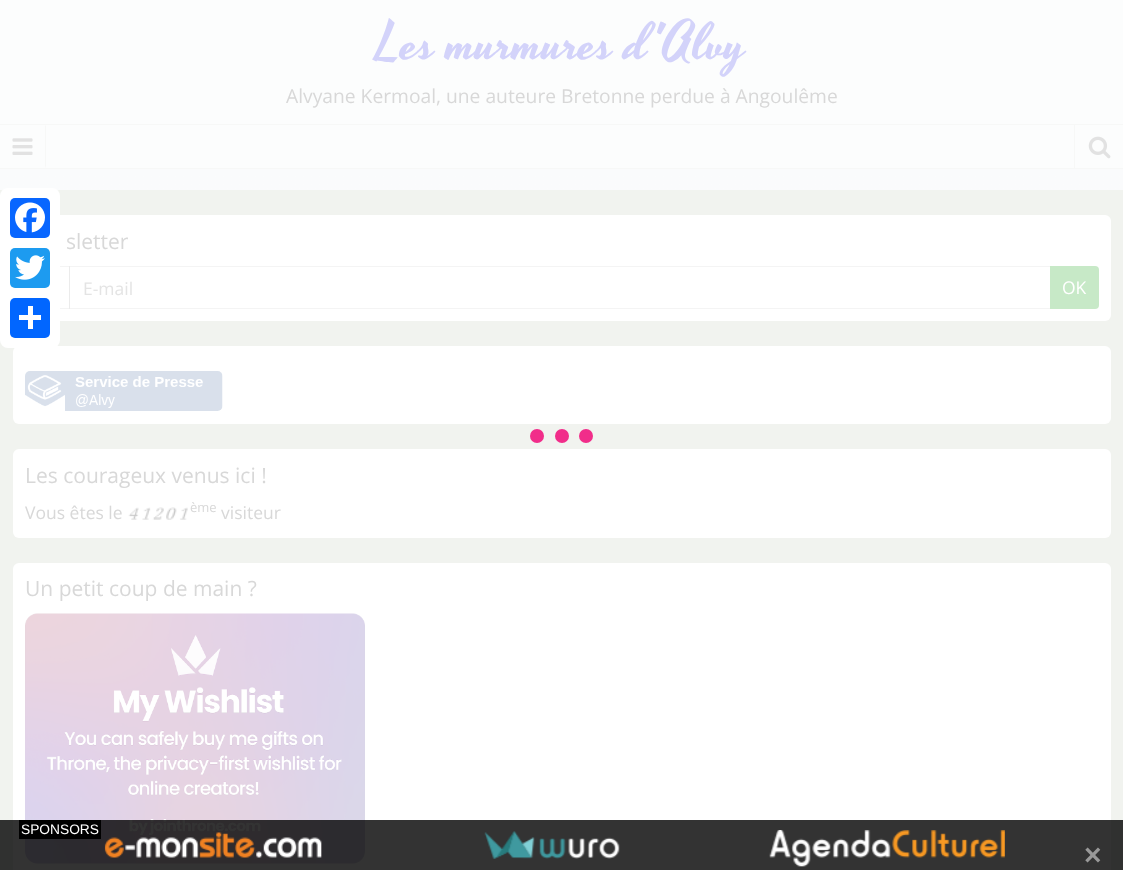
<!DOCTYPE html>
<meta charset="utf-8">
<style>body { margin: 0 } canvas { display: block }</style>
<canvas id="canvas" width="1123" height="870"></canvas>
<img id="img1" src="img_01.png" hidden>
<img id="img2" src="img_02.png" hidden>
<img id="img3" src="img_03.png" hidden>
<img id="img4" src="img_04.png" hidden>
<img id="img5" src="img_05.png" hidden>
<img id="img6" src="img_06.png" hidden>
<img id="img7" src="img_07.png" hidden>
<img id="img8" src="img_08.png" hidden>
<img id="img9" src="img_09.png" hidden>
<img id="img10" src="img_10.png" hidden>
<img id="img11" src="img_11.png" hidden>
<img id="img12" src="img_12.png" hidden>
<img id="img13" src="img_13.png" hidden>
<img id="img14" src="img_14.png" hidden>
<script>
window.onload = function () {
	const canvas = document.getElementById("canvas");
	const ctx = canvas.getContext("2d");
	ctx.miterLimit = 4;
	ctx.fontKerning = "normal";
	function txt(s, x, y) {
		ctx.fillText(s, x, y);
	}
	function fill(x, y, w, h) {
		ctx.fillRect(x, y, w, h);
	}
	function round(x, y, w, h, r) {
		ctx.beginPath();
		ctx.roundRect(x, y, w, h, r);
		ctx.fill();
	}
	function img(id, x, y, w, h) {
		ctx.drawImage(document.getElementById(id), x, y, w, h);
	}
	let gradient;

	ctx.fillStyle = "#FFFFFF";
	fill(0, 0, 1123, 870);
	gradient = ctx.createLinearGradient(562, 0, 562, 870);
	gradient.addColorStop(0, "#FAFBFC");
	gradient.addColorStop(0.19, "#FAFBFC");
	gradient.addColorStop(1, "#FCFCFC");
	ctx.fillStyle = gradient;
	fill(0, 169, 1123, 21);
	ctx.fillStyle = "#FCFDFD";
	fill(0, 0, 1123, 168);
	ctx.fillStyle = "#F7F8F7";
	fill(0, 124, 1123, 1);
	fill(0, 168, 1123, 1);
	ctx.beginPath();
	ctx.moveTo(46, 125);
	ctx.lineTo(46, 168);
	ctx.lineTo(45, 166);
	ctx.lineTo(45, 126);
	ctx.closePath();
	ctx.fill();
	img("img1", 12, 138, 21, 17);
	fill(1074, 125, 1, 43);
	img("img2", 1088, 136, 23, 23);
	ctx.fillStyle = "#F1F3EF";
	fill(0, 190, 1123, 680);
	ctx.fillStyle = "#FFFFFF";
	round(13, 215, 1098, 106, 6);
	ctx.strokeStyle = "#F4F4F4";
	ctx.strokeRect(25.5, 266.5, 44, 42);
	round(13, 346, 1098, 78, 6);
	round(0, 188, 60, 160, 8);
	ctx.fillStyle = "#0866FF";
	round(10, 198, 40, 40, 5);
	img("img3", 15, 202, 30, 31);
	ctx.fillStyle = "#1D9BF0";
	round(10, 248, 40, 40, 5);
	img("img4", 15, 255, 30, 25);
	ctx.fillStyle = "#0166FF";
	round(10, 298, 40, 40, 5);
	ctx.fillStyle = "#FFFFFF";
	fill(28, 306, 5, 23);
	fill(19, 315, 22, 5);
	ctx.strokeStyle = "rgba(199, 199, 199, 0.2)";
	ctx.strokeRect(69.5, 266.5, 981, 42);
	ctx.fillStyle = "#C7E9C7";
	ctx.beginPath();
	ctx.roundRect(1050, 266, 49, 43, [0, 4, 4, 0]);
	ctx.fill();
	img("img5", 25, 371, 198, 40);
	ctx.fillStyle = "#FFFFFF";
	round(13, 449, 1098, 89, 6);
	img("img6", 128, 507, 11, 13);
	img("img7", 142, 507, 9, 13);
	img("img8", 152, 507, 12, 13);
	img("img9", 166, 507, 11, 13);
	img("img10", 179, 507, 9, 13);
	round(13, 563, 1098, 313, 6);
	img("img11", 25, 613, 340, 251);
	ctx.fillStyle = "#F12D8A";
	ctx.beginPath();
	ctx.arc(537, 436, 7, 0, Math.PI * 2);
	ctx.fill();
	ctx.beginPath();
	ctx.arc(562, 436, 7, 0, Math.PI * 2);
	ctx.fill();
	ctx.beginPath();
	ctx.arc(586, 436, 7, 0, Math.PI * 2);
	ctx.fill();
	ctx.fillStyle = "rgba(0, 0, 0, 0.8)";
	fill(0, 820, 1123, 50);
	ctx.fillStyle = "#000000";
	fill(19, 820, 82, 19);
	img("img12", 104, 832, 218, 26);
	img("img13", 484, 831, 136, 28);
	img("img14", 769, 830, 236, 37);
	ctx.font = "52.25px Yesteryear";
	ctx.fillStyle = "#D3D3FA";
	txt("Les murmures d'Alvy", 376, 58);
	ctx.font = "19.25px Open Sans";
	ctx.fillStyle = "#D8D8D8";
	txt("Alvyane Kermoal, une auteure Bretonne perdue à Angoulême", 286, 103);
	ctx.font = "21px Open Sans";
	txt("sletter", 66, 249);
	ctx.font = "17.5px Open Sans";
	ctx.fillStyle = "#E4E4E4";
	txt("E-mail", 83, 295);
	ctx.fillStyle = "#FFFFFF";
	txt("OK", 1062, 294);
	ctx.font = "21px Open Sans";
	ctx.fillStyle = "#D8D8D8";
	txt("Les courageux venus ici !", 25, 483);
	ctx.font = "17.5px Open Sans";
	txt("Vous êtes le", 25, 519);
	ctx.font = "13px Open Sans";
	txt("ème", 190, 512);
	ctx.font = "17.5px Open Sans";
	txt("visiteur", 221, 519);
	ctx.font = "21px Open Sans";
	txt("Un petit coup de main ?", 25, 596);
	ctx.font = "13.75px Liberation Sans";
	ctx.fillStyle = "#FFFFFF";
	txt("SPONSORS", 21, 834);
	ctx.font = "bold 30px Liberation Sans";
	ctx.fillStyle = "#999999";
	txt("×", 1084, 865);
};
</script>
